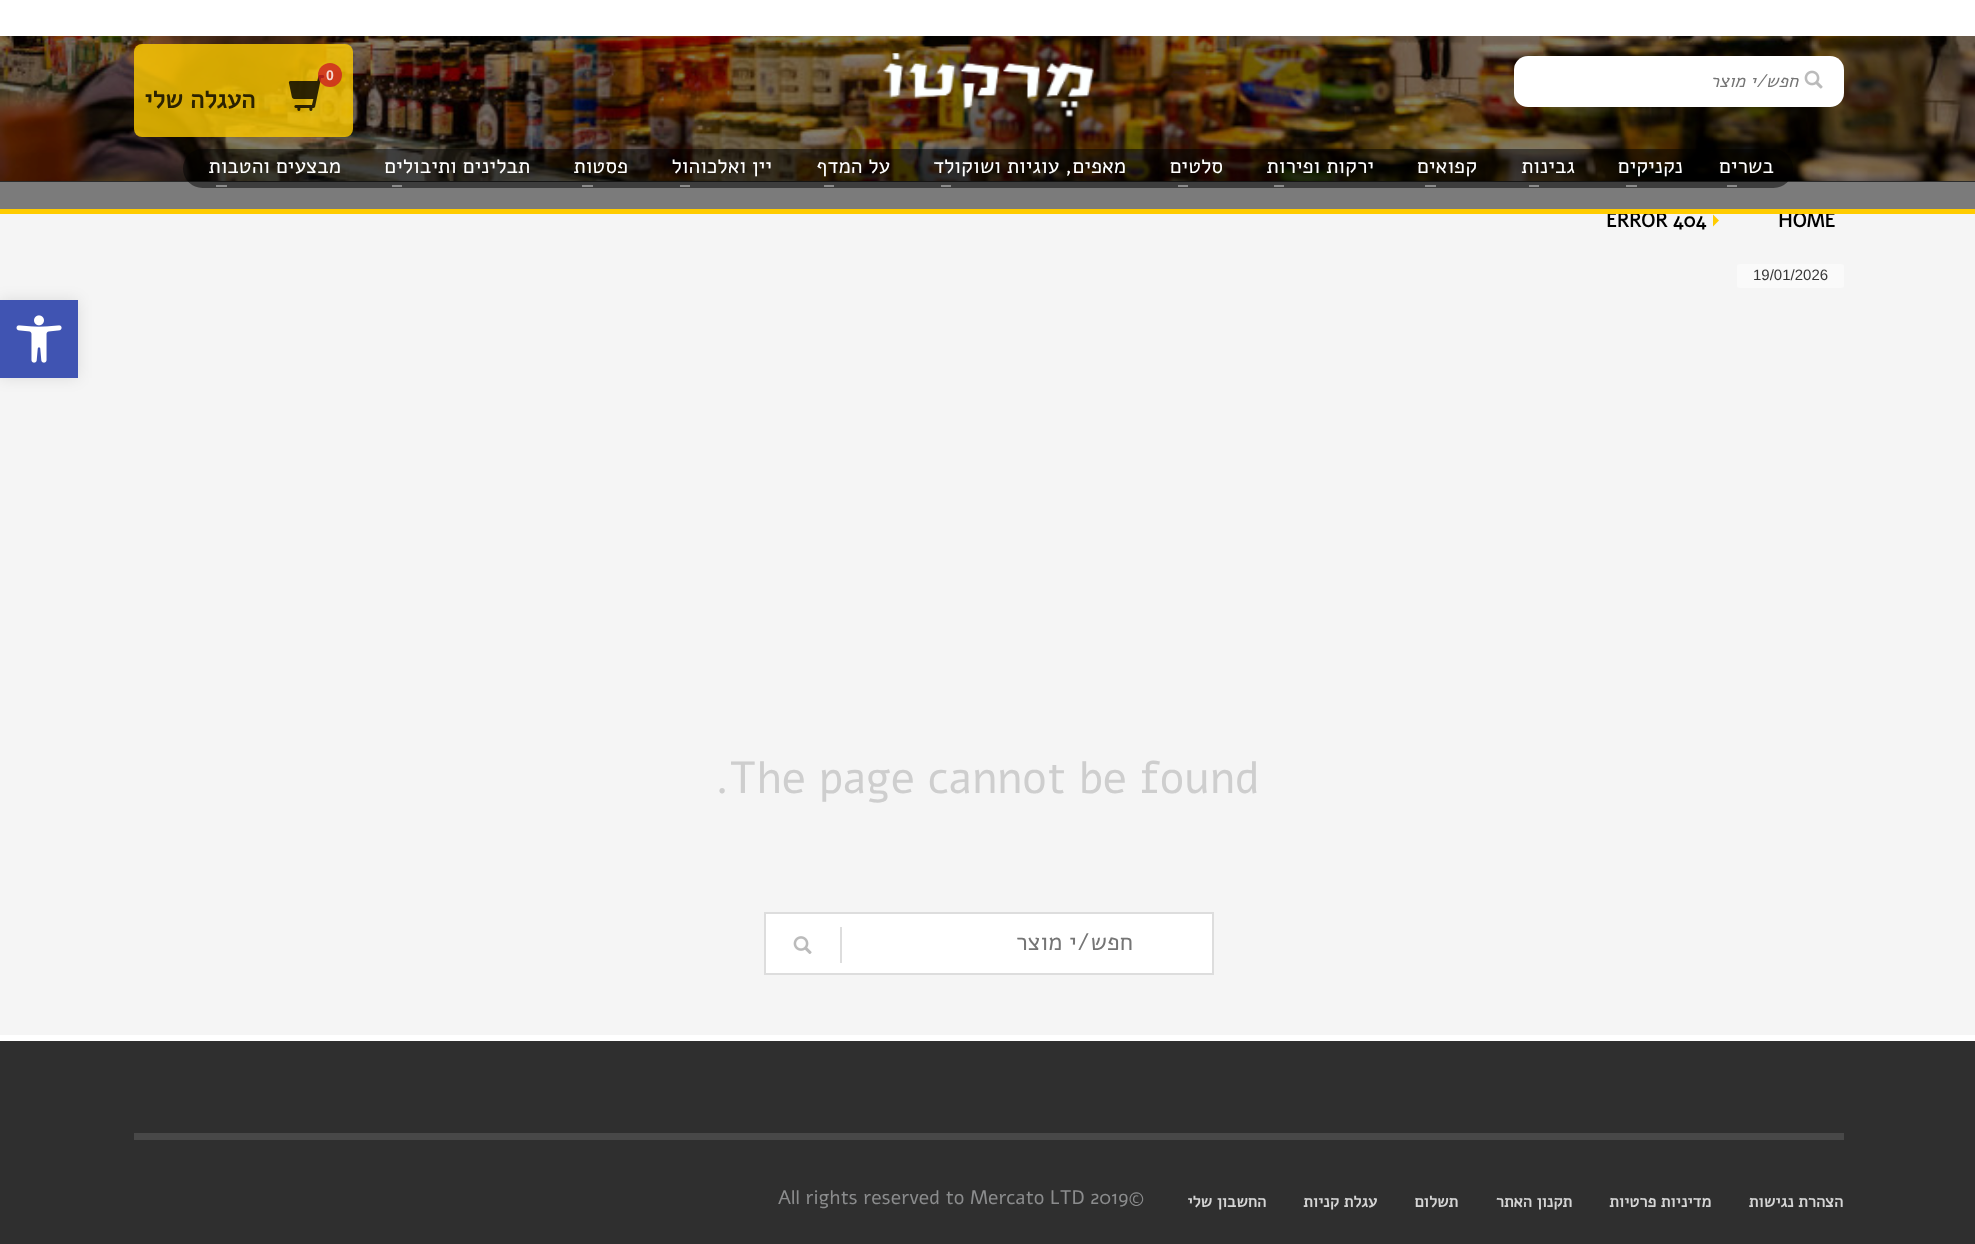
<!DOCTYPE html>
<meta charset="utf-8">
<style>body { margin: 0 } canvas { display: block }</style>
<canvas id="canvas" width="1975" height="1244"></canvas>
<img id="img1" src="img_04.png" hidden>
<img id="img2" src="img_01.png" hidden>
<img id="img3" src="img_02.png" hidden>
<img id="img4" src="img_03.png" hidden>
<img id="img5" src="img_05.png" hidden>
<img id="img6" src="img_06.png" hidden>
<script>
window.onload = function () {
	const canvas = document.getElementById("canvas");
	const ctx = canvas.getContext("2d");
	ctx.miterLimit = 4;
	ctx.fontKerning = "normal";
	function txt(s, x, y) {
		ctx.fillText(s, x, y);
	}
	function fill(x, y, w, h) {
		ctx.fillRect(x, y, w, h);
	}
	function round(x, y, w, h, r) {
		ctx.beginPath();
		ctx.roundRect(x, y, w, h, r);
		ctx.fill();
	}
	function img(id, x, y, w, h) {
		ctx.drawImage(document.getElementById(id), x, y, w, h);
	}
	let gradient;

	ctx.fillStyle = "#F5F5F5";
	fill(0, 0, 1975, 1244);
	ctx.fillStyle = "#7B7B7B";
	fill(0, 182, 1975, 27);
	ctx.fillStyle = "#FFFFFF";
	fill(0, 0, 1975, 36);
	img("img1", 0, 36, 1975, 145);
	round(1514, 56, 330, 51, 14);
	img("img2", 1804, 70, 19, 19);
	img("img3", 883, 53, 211, 65);
	ctx.fillStyle = "rgba(255, 204, 0, 0.8)";
	round(134, 44, 219, 93, 8);
	img("img4", 288, 75, 37, 36);
	ctx.fillStyle = "rgba(205, 33, 34, 0.8)";
	ctx.beginPath();
	ctx.arc(330, 75, 12, 0, Math.PI * 2);
	ctx.fill();
	gradient = ctx.createLinearGradient(988, -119, 988, 182);
	gradient.addColorStop(0, "#555555");
	gradient.addColorStop(1, "#2B2B2B");
	ctx.fillStyle = gradient;
	fill(0, 181, 1975, 1);
	ctx.fillStyle = "rgba(0, 0, 0, 0.5)";
	round(183, 149, 1610, 39, 19.5);
	ctx.fillStyle = "#8B8B8B";
	fill(1727, 185, 10, 2);
	fill(1626, 185, 11, 2);
	fill(1529, 185, 10, 2);
	fill(1425, 185, 11, 2);
	fill(1274, 185, 10, 2);
	fill(1178, 185, 10, 2);
	fill(941, 185, 10, 2);
	fill(824, 185, 10, 2);
	fill(680, 185, 10, 2);
	fill(582, 185, 11, 2);
	fill(392, 185, 10, 2);
	fill(216, 185, 11, 2);
	ctx.fillStyle = "#FFCC00";
	ctx.beginPath();
	ctx.moveTo(1713, 226.5);
	ctx.lineTo(1713, 214.5);
	ctx.lineTo(1719, 220.5);
	ctx.closePath();
	ctx.fill();
	ctx.fillStyle = "#FAFAFA";
	round(1737, 264, 107, 24, 3);
	ctx.fillStyle = "#FFFFFF";
	ctx.beginPath();
	ctx.rect(765, 913, 448, 61);
	ctx.fill();
	ctx.strokeStyle = "#DDDDDD";
	ctx.lineWidth = 2;
	ctx.stroke();
	ctx.fillStyle = "#DDDDDD";
	fill(840, 927, 2, 36);
	img("img5", 793, 936, 19, 18);
	ctx.fillStyle = "#2F2F2F";
	fill(0, 1041, 1975, 203);
	ctx.fillStyle = "#FFFFFF";
	fill(0, 1035, 1975, 6);
	ctx.fillStyle = "#484848";
	fill(134, 1133, 1710, 7);
	ctx.fillStyle = "rgba(0, 0, 0, 0.1)";
	ctx.filter = "blur(7.5px)";
	ctx.beginPath();
	ctx.rect(0, 300, 78, 78);
	ctx.fill();
	ctx.filter = "none";
	ctx.fillStyle = "#4054B2";
	fill(0, 300, 78, 78);
	img("img6", 16, 315, 46, 48);
	ctx.direction = "rtl";
	ctx.font = "italic 18px Alef";
	ctx.fillStyle = "#757575";
	txt("חפש/י מוצר", 1798, 87);
	ctx.direction = "ltr";
	ctx.font = "bold 14px Liberation Sans";
	ctx.fillStyle = "#F5D8D2";
	txt("0", 326, 80);
	ctx.direction = "rtl";
	ctx.font = "bold 25.5px Alef";
	ctx.fillStyle = "#2B2201";
	txt("העגלה שלי", 255, 108);
	ctx.font = "21px 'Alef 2'";
	ctx.fillStyle = "#FFFFFF";
	txt("בשרים", 1774, 173);
	txt("נקניקים", 1683, 173);
	txt("גבינות", 1575, 173);
	txt("קפואים", 1477, 173);
	txt("ירקות ופירות", 1374, 173);
	txt("סלטים", 1223, 173);
	txt("מאפים, עוגיות ושוקולד", 1126, 173);
	txt("על המדף", 890, 173);
	txt("יין ואלכוהול", 772, 173);
	txt("פסטות", 628, 173);
	txt("תבלינים ותיבולים", 530, 173);
	txt("מבצעים והטבות", 341, 173);
	ctx.direction = "ltr";
	ctx.font = "bold 19.5px Alef";
	ctx.fillStyle = "#000000";
	txt("HOME", 1778, 227);
	txt("ERROR 404", 1606, 227);
	ctx.fillStyle = "#FFCC00";
	fill(0, 209, 1975, 5);
	ctx.font = "15px Liberation Sans";
	ctx.fillStyle = "#383838";
	txt("19/01/2026", 1753, 280);
	ctx.font = "45px Alef";
	ctx.fillStyle = "#CECECE";
	txt(".The page cannot be found", 715, 793);
	ctx.direction = "rtl";
	ctx.font = "24px 'Alef 2'";
	ctx.fillStyle = "#757575";
	txt("חפש/י מוצר", 1133, 950);
	ctx.font = "bold 16.5px Alef";
	ctx.fillStyle = "#D5D5D5";
	txt("הצהרת נגישות", 1843, 1207);
	txt("מדיניות פרטיות", 1711, 1207);
	txt("תקנון האתר", 1572, 1207);
	txt("תשלום", 1458, 1207);
	txt("עגלת קניות", 1377, 1207);
	txt("החשבון שלי", 1266, 1207);
	ctx.direction = "ltr";
	ctx.font = "19.5px Alef";
	ctx.fillStyle = "#8B8C8D";
	txt("All rights reserved to Mercato LTD 2019©", 778, 1204);
};
</script>
